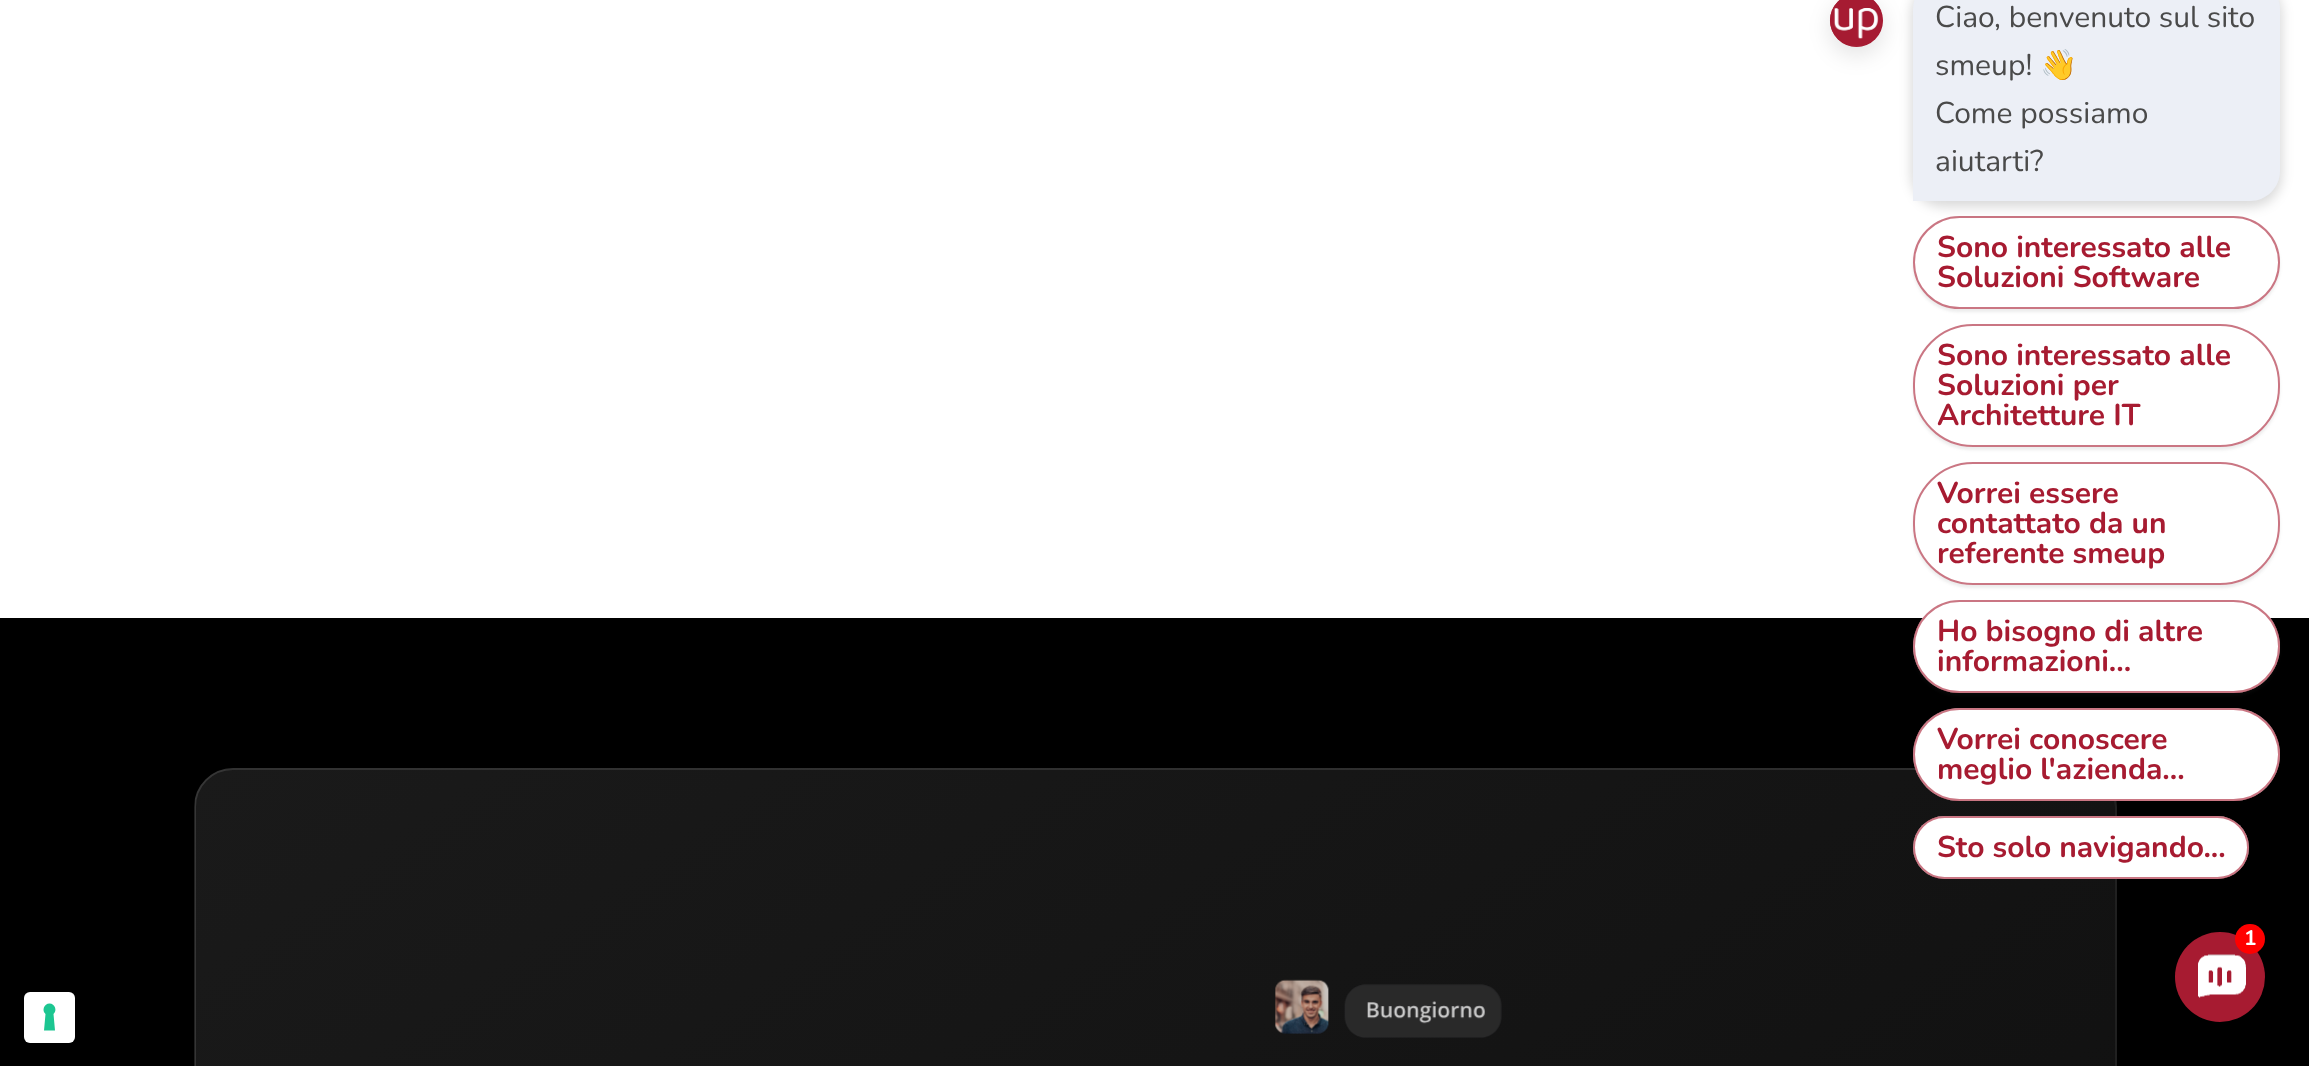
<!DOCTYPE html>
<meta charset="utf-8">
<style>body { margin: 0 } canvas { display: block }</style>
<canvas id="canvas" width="2309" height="1066"></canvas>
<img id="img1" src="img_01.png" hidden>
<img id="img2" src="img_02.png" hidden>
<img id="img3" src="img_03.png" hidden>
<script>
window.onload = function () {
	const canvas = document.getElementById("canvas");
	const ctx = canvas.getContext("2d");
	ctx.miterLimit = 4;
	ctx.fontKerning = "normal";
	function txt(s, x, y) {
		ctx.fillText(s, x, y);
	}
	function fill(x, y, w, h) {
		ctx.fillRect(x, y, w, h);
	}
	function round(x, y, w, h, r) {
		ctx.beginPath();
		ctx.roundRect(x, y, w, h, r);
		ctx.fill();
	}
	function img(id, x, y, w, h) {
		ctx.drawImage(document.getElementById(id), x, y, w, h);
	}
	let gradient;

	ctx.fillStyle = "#FFFFFF";
	fill(0, 0, 2309, 1066);
	ctx.fillStyle = "rgba(0, 0, 0, 0.1)";
	ctx.filter = "blur(10.5px)";
	ctx.beginPath();
	ctx.roundRect(1829, 0, 55, 56, 27.5);
	ctx.fill();
	ctx.filter = "none";
	ctx.fillStyle = "#A71B31";
	ctx.beginPath();
	ctx.arc(1856.5, 20.5, 26.5, 0, Math.PI * 2);
	ctx.fill();
	img("img1", 1830, 0, 53, 47);
	ctx.fillStyle = "rgba(73, 67, 67, 0.1)";
	ctx.filter = "blur(1.5px)";
	ctx.beginPath();
	ctx.roundRect(1913, 219, 367, 93, 46.5);
	ctx.fill();
	ctx.filter = "none";
	ctx.fillStyle = "#FFFFFF";
	round(1913, 216, 367, 93, 46.5);
	ctx.beginPath();
	ctx.roundRect(1914, 217, 365, 91, 45.5);
	ctx.strokeStyle = "rgba(167, 27, 49, 0.6)";
	ctx.lineWidth = 2;
	ctx.stroke();
	ctx.fillStyle = "rgba(0, 0, 0, 0.15)";
	ctx.filter = "blur(6px)";
	ctx.beginPath();
	ctx.roundRect(1911, -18, 371, 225, 32);
	ctx.fill();
	ctx.filter = "none";
	ctx.fillStyle = "#ECEFF6";
	ctx.beginPath();
	ctx.moveTo(1943, -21);
	ctx.lineTo(2250, -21);
	ctx.bezierCurveTo(2266.5, -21, 2280, -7.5, 2280, 9);
	ctx.lineTo(2280, 171);
	ctx.bezierCurveTo(2280, 187.5, 2266.5, 201, 2250, 201);
	ctx.lineTo(1913, 201);
	ctx.lineTo(1913, 9);
	ctx.bezierCurveTo(1913, -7.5, 1926.5, -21, 1943, -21);
	ctx.closePath();
	ctx.fill();
	ctx.fillStyle = "rgba(73, 67, 67, 0.1)";
	ctx.filter = "blur(1.5px)";
	ctx.beginPath();
	ctx.roundRect(1913, 327, 367, 123, 60);
	ctx.fill();
	ctx.filter = "none";
	ctx.fillStyle = "#FFFFFF";
	round(1913, 324, 367, 123, 60);
	ctx.beginPath();
	ctx.roundRect(1914, 325, 365, 121, 59);
	ctx.stroke();
	ctx.fillStyle = "rgba(73, 67, 67, 0.1)";
	ctx.filter = "blur(1.5px)";
	ctx.beginPath();
	ctx.roundRect(1913, 465, 367, 123, 60);
	ctx.fill();
	ctx.filter = "none";
	ctx.fillStyle = "#FFFFFF";
	round(1913, 462, 367, 123, 60);
	ctx.beginPath();
	ctx.roundRect(1914, 463, 365, 121, 59);
	ctx.stroke();
	ctx.fillStyle = "#000000";
	fill(0, 618, 2309, 448);
	ctx.fillStyle = "rgba(73, 67, 67, 0.1)";
	ctx.filter = "blur(1.5px)";
	ctx.beginPath();
	ctx.roundRect(1913, 603, 367, 93, 46.5);
	ctx.fill();
	ctx.filter = "none";
	ctx.fillStyle = "#FFFFFF";
	round(1913, 600, 367, 93, 46.5);
	ctx.beginPath();
	ctx.roundRect(1914, 601, 365, 91, 45.5);
	ctx.stroke();
	ctx.save();
	ctx.beginPath();
	ctx.roundRect(194, 768, 1923, 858, 39);
	ctx.clip();
	gradient = ctx.createLinearGradient(638, -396, 1672, 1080);
	gradient.addColorStop(0, "#1A1A1A");
	gradient.addColorStop(1, "#0F0F0F");
	ctx.fillStyle = gradient;
	fill(221, 768, 1695, 2);
	gradient = ctx.createLinearGradient(638, 459, 1672, 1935);
	gradient.addColorStop(0, "#1A1A1A");
	gradient.addColorStop(1, "#0F0F0F");
	ctx.fillStyle = gradient;
	fill(195, 770, 1920, 296);
	ctx.restore();
	ctx.beginPath();
	ctx.roundRect(195, 769, 1921, 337, 38);
	ctx.strokeStyle = "rgba(224, 224, 224, 0.14)";
	ctx.stroke();
	round(1913, 708, 367, 93, 46.5);
	ctx.beginPath();
	ctx.roundRect(1914, 709, 365, 91, 45.5);
	ctx.strokeStyle = "rgba(167, 27, 49, 0.6)";
	ctx.stroke();
	round(1913, 816, 336, 63, 31.5);
	ctx.beginPath();
	ctx.roundRect(1914, 817, 334, 61, 30.5);
	ctx.stroke();
	ctx.fillStyle = "#A71B31";
	ctx.beginPath();
	ctx.arc(2220, 977, 45, 0, Math.PI * 2);
	ctx.fill();
	ctx.fillStyle = "#FF0000";
	ctx.beginPath();
	ctx.arc(2250, 939, 15, 0, Math.PI * 2);
	ctx.fill();
	img("img2", 2198, 954, 48, 44);
	img("img3", 1275, 979, 227, 59);
	ctx.fillStyle = "#FFFFFF";
	round(24, 992, 51, 51, 6);
	ctx.fillStyle = "#1CC691";
	ctx.beginPath();
	ctx.moveTo(49.5, 1003.5);
	ctx.bezierCurveTo(55, 1003.5, 57.5, 1010.5, 53.5, 1014);
	ctx.lineTo(55, 1030.5);
	ctx.lineTo(44, 1030.5);
	ctx.lineTo(45.5, 1014);
	ctx.bezierCurveTo(41.5, 1010.5, 44, 1003.5, 49.5, 1003.5);
	ctx.closePath();
	ctx.fill("evenodd");
	ctx.font = "30px Nunito";
	ctx.fillStyle = "#4A4A4A";
	txt("Ciao, benvenuto sul sito", 1935, 27);
	txt("smeup!", 1935, 75);
	ctx.font = "30px Noto Color Emoji";
	txt("👋", 2040, 75);
	ctx.font = "30px Nunito";
	txt("Come possiamo", 1935, 123);
	txt("aiutarti?", 1935, 171);
	ctx.font = "bold 30px Nunito";
	ctx.fillStyle = "#A71B31";
	txt("Sono interessato alle", 1937, 257);
	txt("Soluzioni Software", 1937, 287);
	txt("Sono interessato alle", 1937, 365);
	txt("Soluzioni per", 1937, 395);
	txt("Architetture IT", 1937, 425);
	txt("Vorrei essere", 1937, 503);
	txt("contattato da un", 1937, 533);
	txt("referente smeup", 1937, 563);
	txt("Ho bisogno di altre", 1937, 641);
	txt("informazioni...", 1937, 671);
	txt("Vorrei conoscere", 1937, 749);
	txt("meglio l'azienda...", 1937, 779);
	txt("Sto solo navigando...", 1937, 857);
	ctx.font = "bold 21px Nunito";
	ctx.fillStyle = "#FFFFFF";
	txt("1", 2244, 945);
};
</script>
